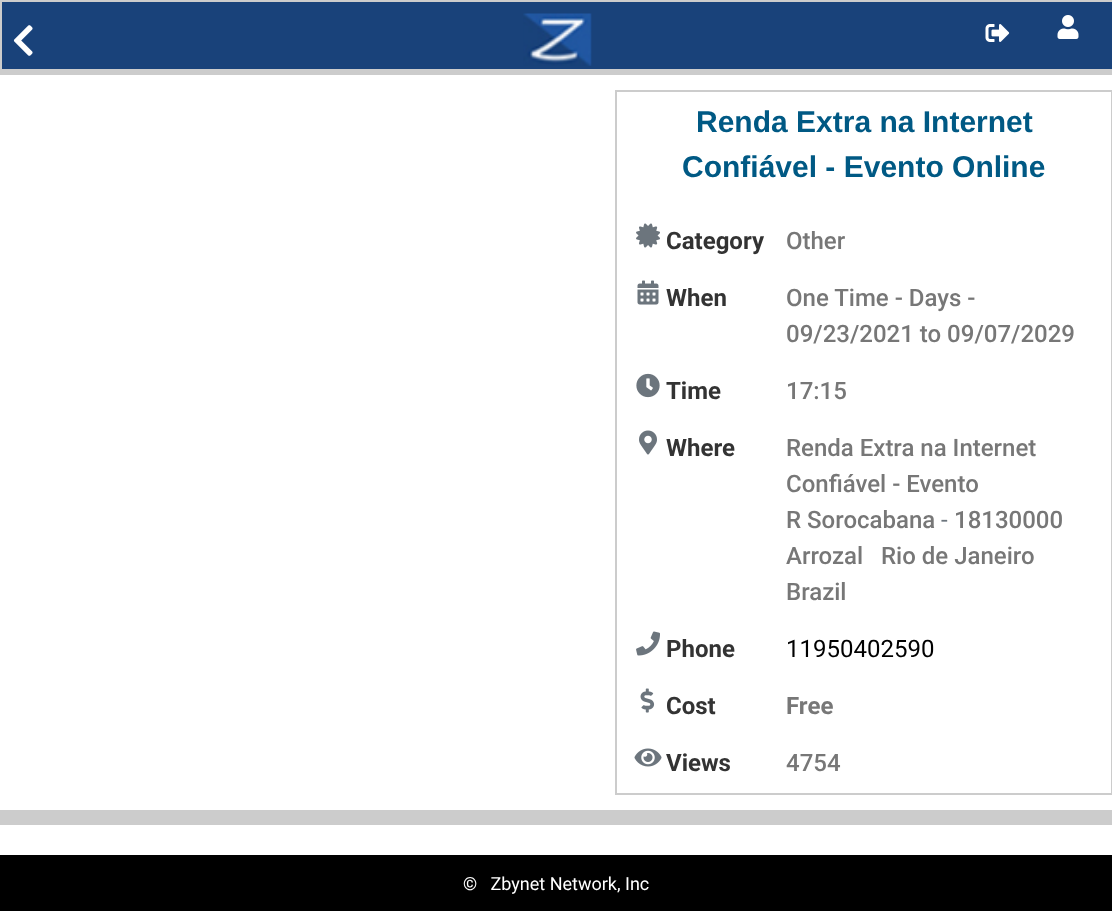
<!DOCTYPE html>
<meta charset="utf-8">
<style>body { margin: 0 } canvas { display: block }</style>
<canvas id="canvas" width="1112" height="911"></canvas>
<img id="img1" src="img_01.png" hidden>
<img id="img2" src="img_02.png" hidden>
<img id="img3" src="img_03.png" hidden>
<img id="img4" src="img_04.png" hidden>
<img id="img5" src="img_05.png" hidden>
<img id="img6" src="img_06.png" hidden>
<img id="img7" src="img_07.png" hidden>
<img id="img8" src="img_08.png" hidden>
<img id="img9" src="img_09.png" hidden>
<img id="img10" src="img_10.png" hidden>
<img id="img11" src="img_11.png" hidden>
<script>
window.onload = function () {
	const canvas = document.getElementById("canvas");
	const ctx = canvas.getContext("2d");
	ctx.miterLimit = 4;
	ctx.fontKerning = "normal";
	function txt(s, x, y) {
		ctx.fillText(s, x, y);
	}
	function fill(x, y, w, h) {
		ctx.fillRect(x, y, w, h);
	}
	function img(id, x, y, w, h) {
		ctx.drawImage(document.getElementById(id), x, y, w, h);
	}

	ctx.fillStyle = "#CCCCCC";
	fill(0, 0, 1112, 911);
	ctx.fillStyle = "#19427A";
	fill(2, 2, 1110, 67);
	img("img1", 13, 25, 20, 31);
	img("img2", 523, 13, 69, 53);
	img("img3", 985, 24, 25, 18);
	img("img4", 1057, 15, 22, 24);
	ctx.fillStyle = "#FFFFFF";
	fill(0, 75, 1112, 735);
	ctx.strokeStyle = "#CCCCCC";
	ctx.lineWidth = 2;
	ctx.strokeRect(616, 91, 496, 703);
	img("img5", 636, 223, 24, 25);
	img("img6", 637, 280, 22, 25);
	img("img7", 636, 373, 24, 25);
	img("img8", 639, 430, 18, 25);
	img("img9", 636, 631, 24, 25);
	img("img10", 640, 688, 15, 25);
	img("img11", 634, 748, 28, 19);
	fill(0, 825, 1112, 30);
	ctx.fillStyle = "#000000";
	fill(0, 855, 1112, 56);
	ctx.font = "bold 30px Liberation Sans";
	ctx.fillStyle = "#005984";
	txt("Renda Extra na Internet", 696, 132);
	txt("Confiável - Evento Online", 682, 177);
	ctx.font = "bold 24px Roboto";
	ctx.fillStyle = "#333333";
	txt("Category", 666, 249);
	ctx.font = "500 24px Roboto";
	ctx.fillStyle = "#777777";
	txt("Other", 786, 249);
	ctx.font = "bold 24px Roboto";
	ctx.fillStyle = "#333333";
	txt("When", 666, 306);
	ctx.font = "500 24px Roboto";
	ctx.fillStyle = "#777777";
	txt("One Time - Days -", 786, 306);
	txt("09/23/2021 to 09/07/2029", 786, 342);
	ctx.font = "bold 24px Roboto";
	ctx.fillStyle = "#333333";
	txt("Time", 666, 399);
	ctx.font = "500 24px Roboto";
	ctx.fillStyle = "#777777";
	txt("17:15", 786, 399);
	ctx.font = "bold 24px Roboto";
	ctx.fillStyle = "#333333";
	txt("Where", 666, 456);
	ctx.font = "500 24px Roboto";
	ctx.fillStyle = "#777777";
	txt("Renda Extra na Internet", 786, 456);
	txt("Confiável - Evento", 786, 492);
	txt("R Sorocabana", 786, 528);
	ctx.font = "24px Roboto";
	ctx.fillStyle = "#6C757D";
	txt("-", 941, 528);
	ctx.font = "500 24px Roboto";
	ctx.fillStyle = "#777777";
	txt("18130000", 954, 528);
	txt("Arrozal", 786, 564);
	txt("Rio de Janeiro", 881, 564);
	txt("Brazil", 786, 600);
	ctx.font = "bold 24px Roboto";
	ctx.fillStyle = "#333333";
	txt("Phone", 666, 657);
	ctx.font = "24px Roboto";
	ctx.fillStyle = "#000000";
	txt("11950402590", 786, 657);
	ctx.font = "bold 24px Roboto";
	ctx.fillStyle = "#333333";
	txt("Cost", 666, 714);
	ctx.fillStyle = "#777777";
	txt("Free", 786, 714);
	ctx.fillStyle = "#333333";
	txt("Views", 666, 771);
	ctx.font = "500 24px Roboto";
	ctx.fillStyle = "#777777";
	txt("4754", 786, 771);
	ctx.font = "18px Roboto";
	ctx.fillStyle = "#FFFFFF";
	txt("©   Zbynet Network, Inc", 463, 890);
};
</script>
